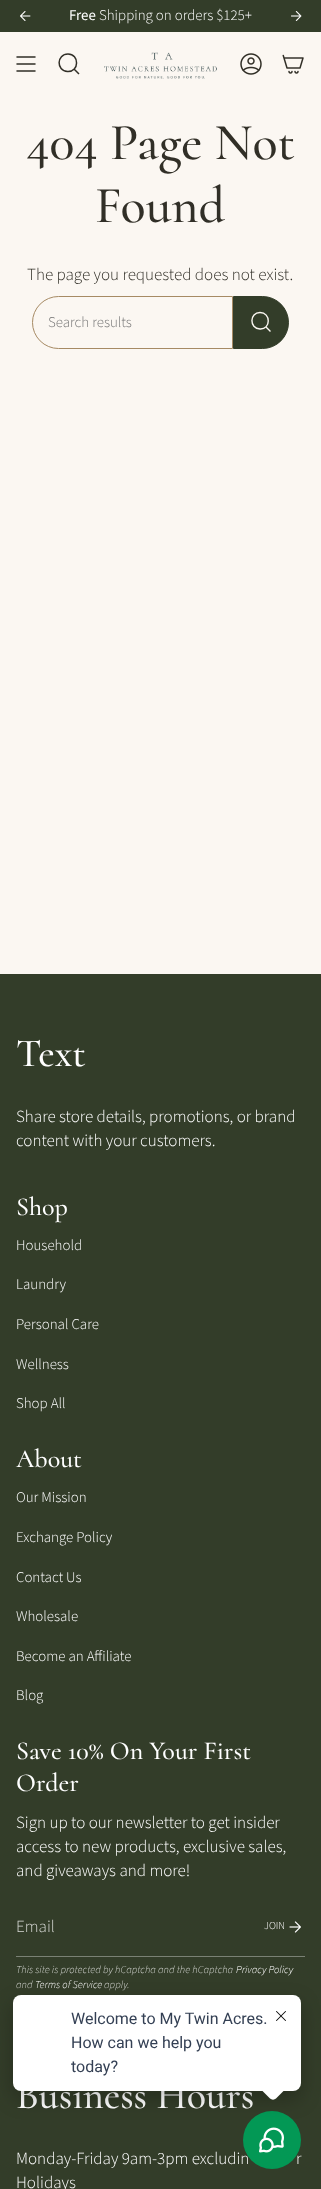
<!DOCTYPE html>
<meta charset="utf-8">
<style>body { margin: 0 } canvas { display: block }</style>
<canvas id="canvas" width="321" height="2189"></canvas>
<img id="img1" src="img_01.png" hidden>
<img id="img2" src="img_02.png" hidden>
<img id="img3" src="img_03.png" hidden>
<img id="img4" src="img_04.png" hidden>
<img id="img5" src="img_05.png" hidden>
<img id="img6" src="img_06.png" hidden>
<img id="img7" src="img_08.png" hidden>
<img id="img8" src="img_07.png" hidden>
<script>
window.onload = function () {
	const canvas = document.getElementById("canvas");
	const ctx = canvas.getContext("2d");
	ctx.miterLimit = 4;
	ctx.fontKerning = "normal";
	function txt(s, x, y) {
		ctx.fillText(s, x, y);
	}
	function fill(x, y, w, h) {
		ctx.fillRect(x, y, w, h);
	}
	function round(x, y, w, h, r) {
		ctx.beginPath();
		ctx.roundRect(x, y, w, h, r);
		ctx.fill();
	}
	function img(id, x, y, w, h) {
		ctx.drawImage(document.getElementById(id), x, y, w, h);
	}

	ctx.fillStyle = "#FBF7F2";
	fill(0, 0, 321, 2189);
	ctx.fillStyle = "#333D29";
	fill(0, 0, 321, 32);
	img("img1", 20, 11, 11, 10);
	img("img2", 291, 11, 11, 10);
	ctx.beginPath();
	ctx.moveTo(17, 57);
	ctx.lineTo(35, 57);
	ctx.moveTo(17, 64);
	ctx.lineTo(35, 64);
	ctx.moveTo(17, 71);
	ctx.lineTo(35, 71);
	ctx.strokeStyle = "#312F27";
	ctx.lineWidth = 1.5;
	ctx.lineCap = "round";
	ctx.lineJoin = "round";
	ctx.stroke();
	ctx.beginPath();
	ctx.moveTo(68, 54);
	ctx.bezierCurveTo(79.5, 54, 79.5, 72, 67.5, 71.5);
	ctx.bezierCurveTo(56, 71, 56.5, 54, 68, 54);
	ctx.closePath();
	ctx.moveTo(74, 69);
	ctx.lineTo(79, 74);
	ctx.lineCap = "butt";
	ctx.lineJoin = "miter";
	ctx.stroke();
	img("img3", 104, 52, 113, 27);
	img("img4", 240, 53, 22, 22);
	img("img5", 282, 54, 22, 20);
	ctx.beginPath();
	ctx.roundRect(32.5, 296.5, 200, 52, [26, 0, 0, 26]);
	ctx.strokeStyle = "#A68A64";
	ctx.lineWidth = 1;
	ctx.stroke();
	ctx.beginPath();
	ctx.roundRect(233.5, 296.5, 55, 52, [0, 26, 26, 0]);
	ctx.fill();
	ctx.strokeStyle = "#333D29";
	ctx.stroke();
	ctx.beginPath();
	ctx.moveTo(260, 312.5);
	ctx.bezierCurveTo(271, 312.5, 271, 329.5, 260, 329);
	ctx.bezierCurveTo(249, 328.5, 249.5, 312.5, 260, 312.5);
	ctx.closePath();
	ctx.moveTo(266, 327);
	ctx.lineTo(270.5, 331.5);
	ctx.strokeStyle = "#FBF7F2";
	ctx.lineWidth = 1.4;
	ctx.stroke();
	fill(0, 974, 321, 1215);
	ctx.fillStyle = "#7A8174";
	fill(16, 1956, 289, 1);
	img("img6", 289, 1921, 12, 12);
	ctx.font = "14.9px Source Sans Pro";
	ctx.fillStyle = "#FFFFFF";
	txt("Free", 69, 20);
	ctx.font = "300 14.9px Source Sans Pro";
	txt("Shipping on orders $125+", 99, 20);
	ctx.font = "500 52px Cormorant";
	ctx.fillStyle = "#312F27";
	txt("404 Page Not", 26, 159);
	txt("Found", 95, 222);
	ctx.font = "300 17px Source Sans Pro";
	txt("The page you requested does not exist.", 27, 280);
	ctx.font = "300 14.9px Source Sans Pro";
	ctx.fillStyle = "#757575";
	txt("Search results", 48, 327);
	ctx.font = "500 40px Cormorant";
	ctx.fillStyle = "#FFFFFF";
	txt("Text", 16, 1066);
	ctx.font = "300 17px Source Sans Pro";
	txt("Share store details, promotions, or brand", 16, 1122);
	txt("content with your customers.", 16, 1146);
	ctx.font = "500 26px Cormorant";
	txt("Shop", 16, 1215);
	ctx.font = "300 14.9px Source Sans Pro";
	txt("Household", 16, 1250);
	txt("Laundry", 16, 1289);
	txt("Personal Care", 16, 1329);
	txt("Wellness", 16, 1369);
	txt("Shop All", 16, 1408);
	ctx.font = "500 26px Cormorant";
	txt("About", 16, 1467);
	ctx.font = "300 14.9px Source Sans Pro";
	txt("Our Mission", 16, 1502);
	txt("Exchange Policy", 16, 1542);
	txt("Contact Us", 16, 1582);
	txt("Wholesale", 16, 1621);
	txt("Become an Affiliate", 16, 1661);
	txt("Blog", 16, 1700);
	ctx.font = "500 26px Cormorant";
	txt("Save 10% On Your First", 16, 1759);
	txt("Order", 16, 1791);
	ctx.font = "300 17px Source Sans Pro";
	txt("Sign up to our newsletter to get insider", 16, 1828);
	txt("access to new products, exclusive sales,", 16, 1852);
	txt("and giveaways and more!", 16, 1876);
	ctx.fillStyle = "#D6D8D4";
	txt("Email", 16, 1932);
	ctx.font = "300 10.6px Source Sans Pro";
	ctx.fillStyle = "#FFFFFF";
	txt("JOIN", 264, 1929);
	ctx.font = "italic 300 10.6px Source Sans Pro";
	ctx.fillStyle = "#D6D8D4";
	txt("This site is protected by hCaptcha and the hCaptcha", 16, 1973);
	ctx.fillStyle = "#FFFFFF";
	txt("Privacy Policy", 236, 1973);
	ctx.fillStyle = "#D6D8D4";
	txt("and", 16, 1988);
	ctx.fillStyle = "#FFFFFF";
	txt("Terms of Service", 35, 1988);
	ctx.fillStyle = "#D6D8D4";
	txt("apply.", 104, 1988);
	ctx.font = "500 40px Cormorant";
	ctx.fillStyle = "#FFFFFF";
	txt("Business Hours", 16, 2108);
	ctx.font = "300 17px Source Sans Pro";
	txt("Monday-Friday 9am-3pm excludin", 16, 2164);
	txt("r", 296, 2164);
	txt("Holidays", 16, 2188);
	ctx.fillStyle = "#039855";
	ctx.beginPath();
	ctx.arc(272, 2140, 29, 0, Math.PI * 2);
	ctx.fill();
	img("img7", 259, 2127, 25, 26);
	ctx.fillStyle = "rgba(0, 0, 0, 0.24)";
	ctx.filter = "blur(10px)";
	ctx.beginPath();
	ctx.roundRect(13, 2003, 288, 96, 8);
	ctx.fill();
	ctx.filter = "none";
	ctx.fillStyle = "#FFFFFF";
	round(13, 1995, 288, 96, 8);
	img("img8", 276, 2011, 10, 10);
	ctx.font = "16px Roboto";
	ctx.fillStyle = "#344054";
	txt("today?", 71, 2072);
	txt("How can we help you", 71, 2048);
	txt("Welcome to My Twin Acres.", 71, 2024);
	ctx.fillStyle = "#FFFFFF";
	ctx.beginPath();
	ctx.moveTo(276, 2075.5);
	ctx.lineTo(284.5, 2084);
	ctx.bezierCurveTo(286, 2085.5, 286, 2088.5, 284.5, 2090);
	ctx.lineTo(276, 2098.5);
	ctx.bezierCurveTo(274.5, 2100, 271.5, 2100, 270, 2098.5);
	ctx.lineTo(261.5, 2090);
	ctx.bezierCurveTo(260, 2088.5, 260, 2085.5, 261.5, 2084);
	ctx.lineTo(270, 2075.5);
	ctx.bezierCurveTo(271.5, 2074, 274.5, 2074, 276, 2075.5);
	ctx.closePath();
	ctx.fill();
};
</script>
